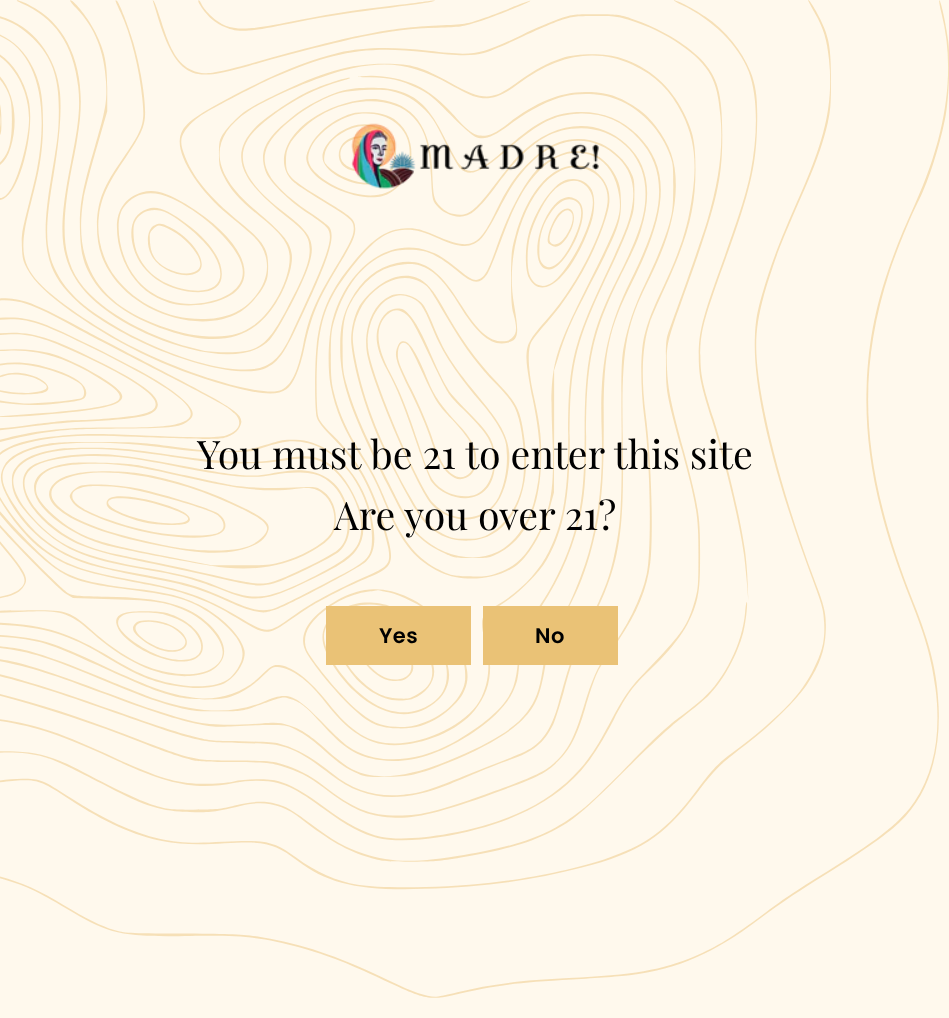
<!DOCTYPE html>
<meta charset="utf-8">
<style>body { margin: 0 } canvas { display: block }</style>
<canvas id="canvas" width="949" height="1018"></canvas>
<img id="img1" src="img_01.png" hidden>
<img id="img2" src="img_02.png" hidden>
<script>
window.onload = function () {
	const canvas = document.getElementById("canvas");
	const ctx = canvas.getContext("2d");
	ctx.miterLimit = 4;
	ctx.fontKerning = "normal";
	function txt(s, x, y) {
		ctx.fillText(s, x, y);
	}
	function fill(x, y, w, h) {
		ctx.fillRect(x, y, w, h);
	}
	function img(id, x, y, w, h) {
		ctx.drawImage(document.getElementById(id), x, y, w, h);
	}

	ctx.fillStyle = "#FFF9ED";
	fill(0, 0, 949, 1018);
	img("img1", 0, 0, 949, 998);
	img("img2", 351, 123, 248, 66);
	ctx.fillStyle = "#EAC276";
	fill(326, 606, 145, 59);
	fill(483, 606, 135, 59);
	ctx.font = "39.4px Playfair Display";
	ctx.fillStyle = "#000000";
	txt("You must be 21 to enter this site", 197, 469);
	txt("Are you over 21?", 334, 530);
	ctx.letterSpacing = "0.5px";
	ctx.font = "600 21px Poppins";
	txt("Yes", 379, 643);
	txt("No", 535, 643);
};
</script>
